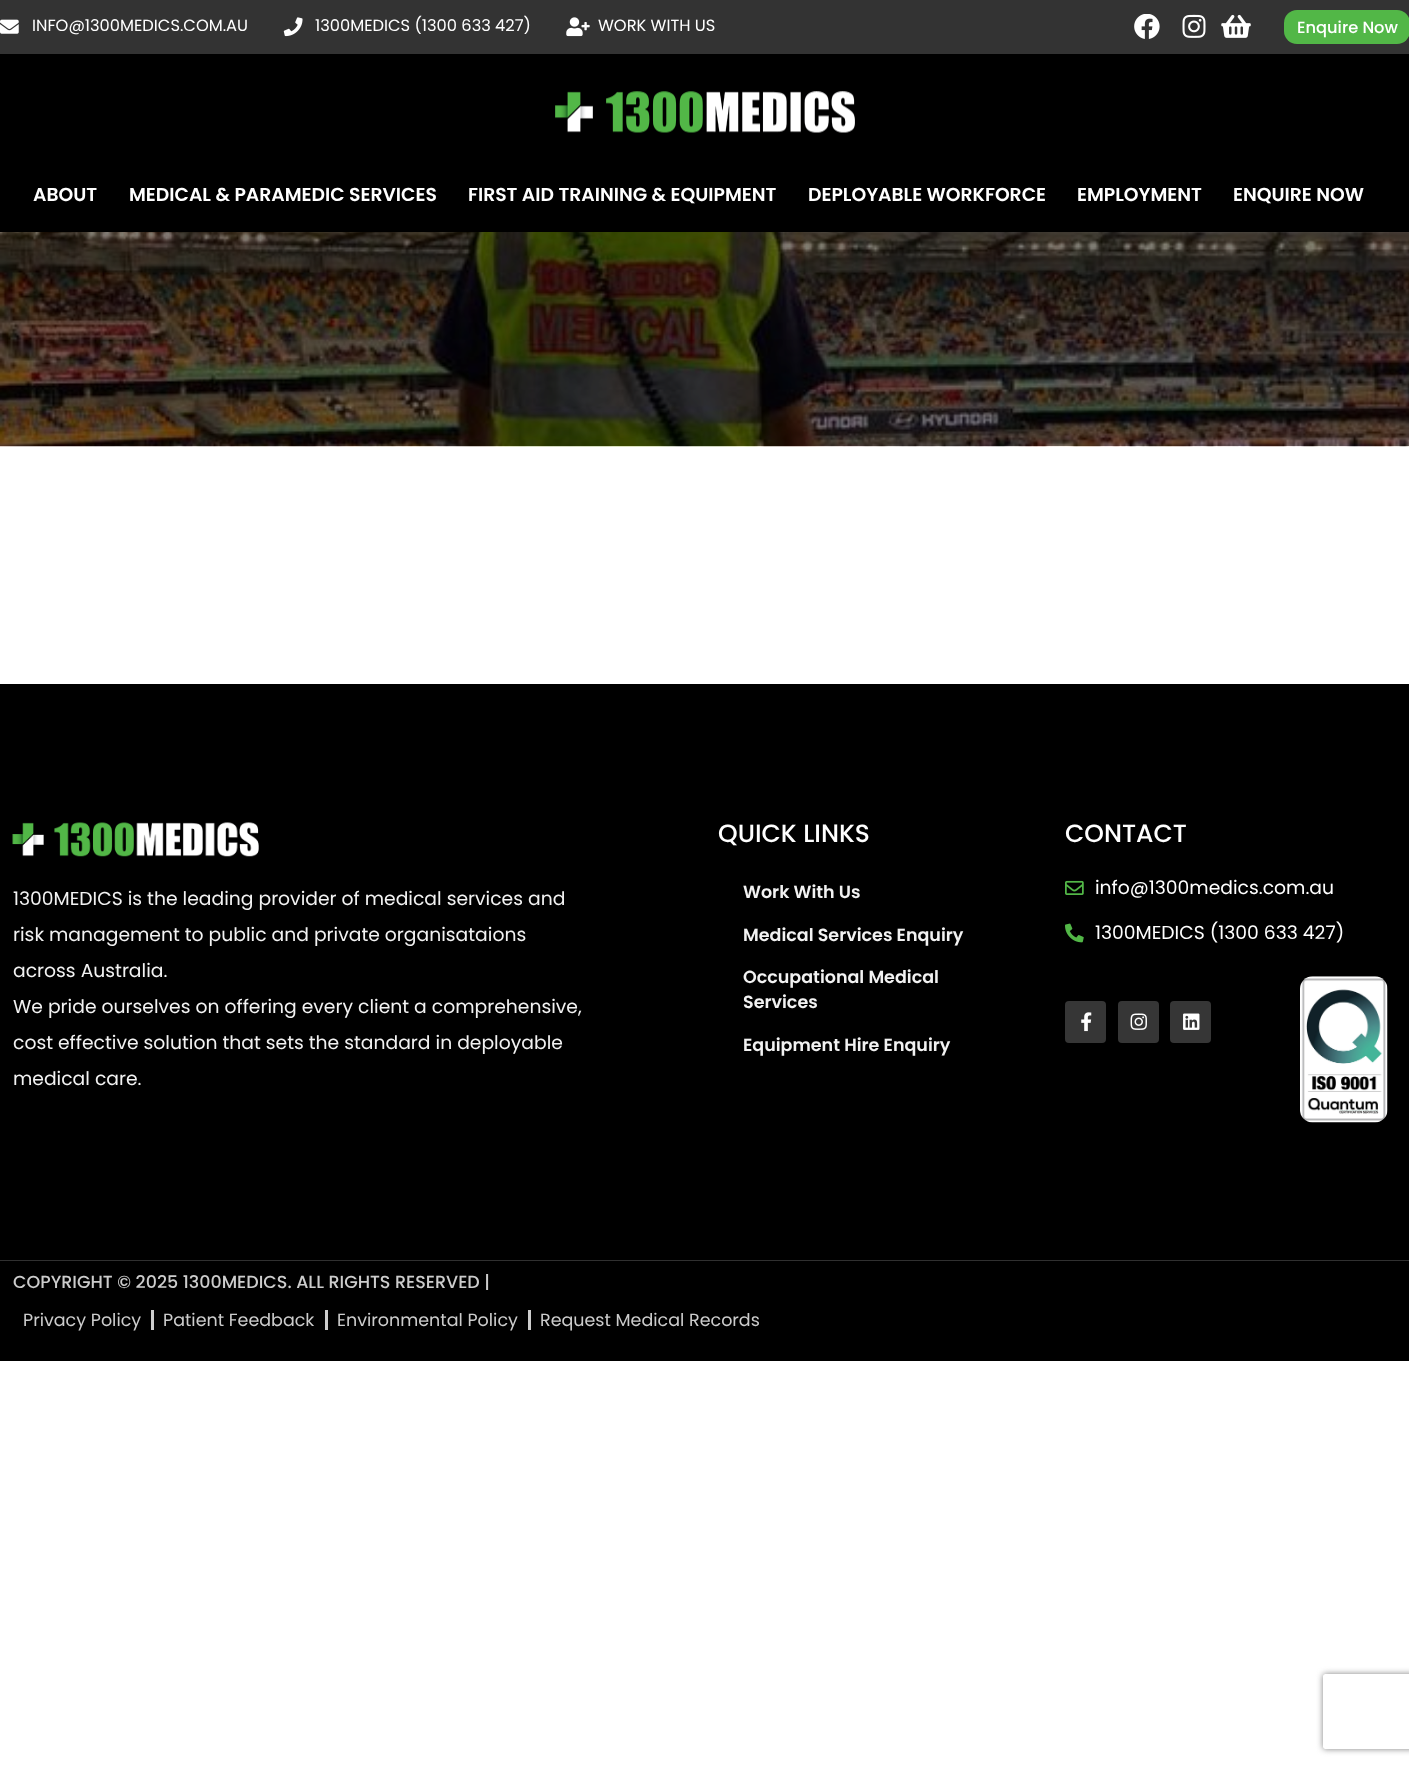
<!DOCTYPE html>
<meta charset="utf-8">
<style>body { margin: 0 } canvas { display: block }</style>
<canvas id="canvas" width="1409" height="1766"></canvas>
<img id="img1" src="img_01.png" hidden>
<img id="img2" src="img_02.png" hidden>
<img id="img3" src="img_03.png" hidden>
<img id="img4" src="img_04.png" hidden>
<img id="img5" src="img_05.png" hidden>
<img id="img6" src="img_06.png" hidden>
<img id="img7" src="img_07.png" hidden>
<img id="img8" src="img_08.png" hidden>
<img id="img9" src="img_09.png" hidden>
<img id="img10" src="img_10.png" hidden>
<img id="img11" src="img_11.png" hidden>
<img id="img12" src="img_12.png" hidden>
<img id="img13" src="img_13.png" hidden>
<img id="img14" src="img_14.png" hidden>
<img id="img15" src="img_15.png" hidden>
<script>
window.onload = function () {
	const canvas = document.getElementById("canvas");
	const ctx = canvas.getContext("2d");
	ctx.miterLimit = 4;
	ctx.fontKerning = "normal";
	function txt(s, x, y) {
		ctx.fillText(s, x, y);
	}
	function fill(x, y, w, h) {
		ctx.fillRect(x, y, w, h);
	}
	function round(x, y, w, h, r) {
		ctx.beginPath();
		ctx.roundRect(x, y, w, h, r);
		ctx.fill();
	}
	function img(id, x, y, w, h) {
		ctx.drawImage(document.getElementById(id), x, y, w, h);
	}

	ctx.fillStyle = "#FFFFFF";
	fill(0, 0, 1409, 1766);
	ctx.fillStyle = "#333333";
	fill(0, 0, 1409, 54);
	img("img1", 0, 19, 19, 15);
	img("img2", 283, 17, 20, 20);
	img("img3", 566, 17, 24, 20);
	img("img4", 1134, 14, 26, 25);
	img("img5", 1182, 14, 24, 24);
	img("img6", 1221, 14, 30, 24);
	ctx.fillStyle = "#52B747";
	round(1284, 10, 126, 34, 13);
	ctx.fillStyle = "#000000";
	fill(0, 54, 1409, 179);
	img("img7", 555, 91, 300, 42);
	img("img8", 0, 232, 1409, 215);
	fill(0, 684, 1409, 576);
	img("img9", 12, 822, 247, 35);
	img("img10", 1065, 880, 19, 15);
	img("img11", 1065, 923, 19, 20);
	ctx.fillStyle = "#363636";
	round(1065, 1001, 41, 42, 4);
	img("img12", 1081, 1012, 11, 20);
	round(1118, 1001, 41, 42, 4);
	img("img13", 1130, 1013, 17, 17);
	round(1170, 1001, 41, 42, 4);
	img("img14", 1183, 1013, 17, 17);
	img("img15", 1300, 976, 88, 147);
	ctx.fillStyle = "#000000";
	fill(0, 1261, 1409, 100);
	ctx.fillStyle = "#303030";
	fill(0, 1260, 1409, 1);
	ctx.fillStyle = "#CCCCCC";
	fill(151, 1310, 3, 20);
	fill(325, 1310, 3, 20);
	fill(528, 1310, 3, 20);
	ctx.save();
	ctx.beginPath();
	ctx.moveTo(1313, 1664);
	ctx.lineTo(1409, 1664);
	ctx.lineTo(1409, 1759);
	ctx.lineTo(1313, 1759);
	ctx.closePath();
	ctx.moveTo(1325.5, 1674);
	ctx.lineTo(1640.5, 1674);
	ctx.bezierCurveTo(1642, 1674, 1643, 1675, 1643, 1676.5);
	ctx.lineTo(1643, 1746.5);
	ctx.bezierCurveTo(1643, 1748, 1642, 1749, 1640.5, 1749);
	ctx.lineTo(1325.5, 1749);
	ctx.bezierCurveTo(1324, 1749, 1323, 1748, 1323, 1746.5);
	ctx.lineTo(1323, 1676.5);
	ctx.bezierCurveTo(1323, 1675, 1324, 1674, 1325.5, 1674);
	ctx.closePath();
	ctx.clip("evenodd");
	ctx.fillStyle = "#808080";
	ctx.filter = "blur(3px)";
	ctx.beginPath();
	ctx.roundRect(1323, 1674, 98, 75, 2.5);
	ctx.fill();
	ctx.filter = "none";
	ctx.restore();
	ctx.font = "16.25px Poppins";
	ctx.fillStyle = "#FFFFFF";
	txt("INFO@1300MEDICS.COM.AU", 32, 31);
	txt("1300MEDICS (1300 633 427)", 315, 31);
	txt("WORK WITH US", 598, 31);
	ctx.font = "500 16.25px Poppins";
	txt("Enquire Now", 1297, 33);
	ctx.font = "600 18.75px Poppins";
	txt("ABOUT", 33, 201);
	txt("MEDICAL & PARAMEDIC SERVICES", 129, 201);
	txt("FIRST AID TRAINING & EQUIPMENT", 468, 201);
	txt("DEPLOYABLE WORKFORCE", 808, 201);
	txt("EMPLOYMENT", 1077, 201);
	txt("ENQUIRE NOW", 1233, 201);
	ctx.font = "18.75px Poppins";
	ctx.fillStyle = "#F2F2F2";
	txt("1300MEDICS is the leading provider of medical services and", 13, 905);
	txt("risk management to public and private organisataions", 13, 941);
	txt("across Australia.", 13, 977);
	txt("We pride ourselves on offering every client a comprehensive,", 13, 1013);
	txt("cost effective solution that sets the standard in deployable", 13, 1049);
	txt("medical care.", 13, 1085);
	ctx.font = "500 25px Poppins";
	ctx.fillStyle = "#FFFFFF";
	txt("QUICK LINKS", 718, 842);
	ctx.font = "600 17.5px Poppins";
	ctx.fillStyle = "#F2F2F2";
	txt("Work With Us", 743, 898);
	txt("Medical Services Enquiry", 743, 941);
	txt("Occupational Medical", 743, 983);
	txt("Services", 743, 1008);
	txt("Equipment Hire Enquiry", 743, 1051);
	ctx.font = "500 25px Poppins";
	ctx.fillStyle = "#FFFFFF";
	txt("CONTACT", 1065, 842);
	ctx.font = "18.75px Poppins";
	txt("info@1300medics.com.au", 1095, 894);
	txt("1300MEDICS (1300 633 427)", 1095, 939);
	ctx.font = "500 17.5px Poppins";
	ctx.fillStyle = "#CCCCCC";
	txt("COPYRIGHT © 2025 1300MEDICS. ALL RIGHTS RESERVED |", 13, 1288);
	ctx.font = "17.5px Poppins";
	txt("Privacy Policy", 23, 1326);
	txt("Patient Feedback", 163, 1326);
	txt("Environmental Policy", 337, 1326);
	txt("Request Medical Records", 540, 1326);
};
</script>
